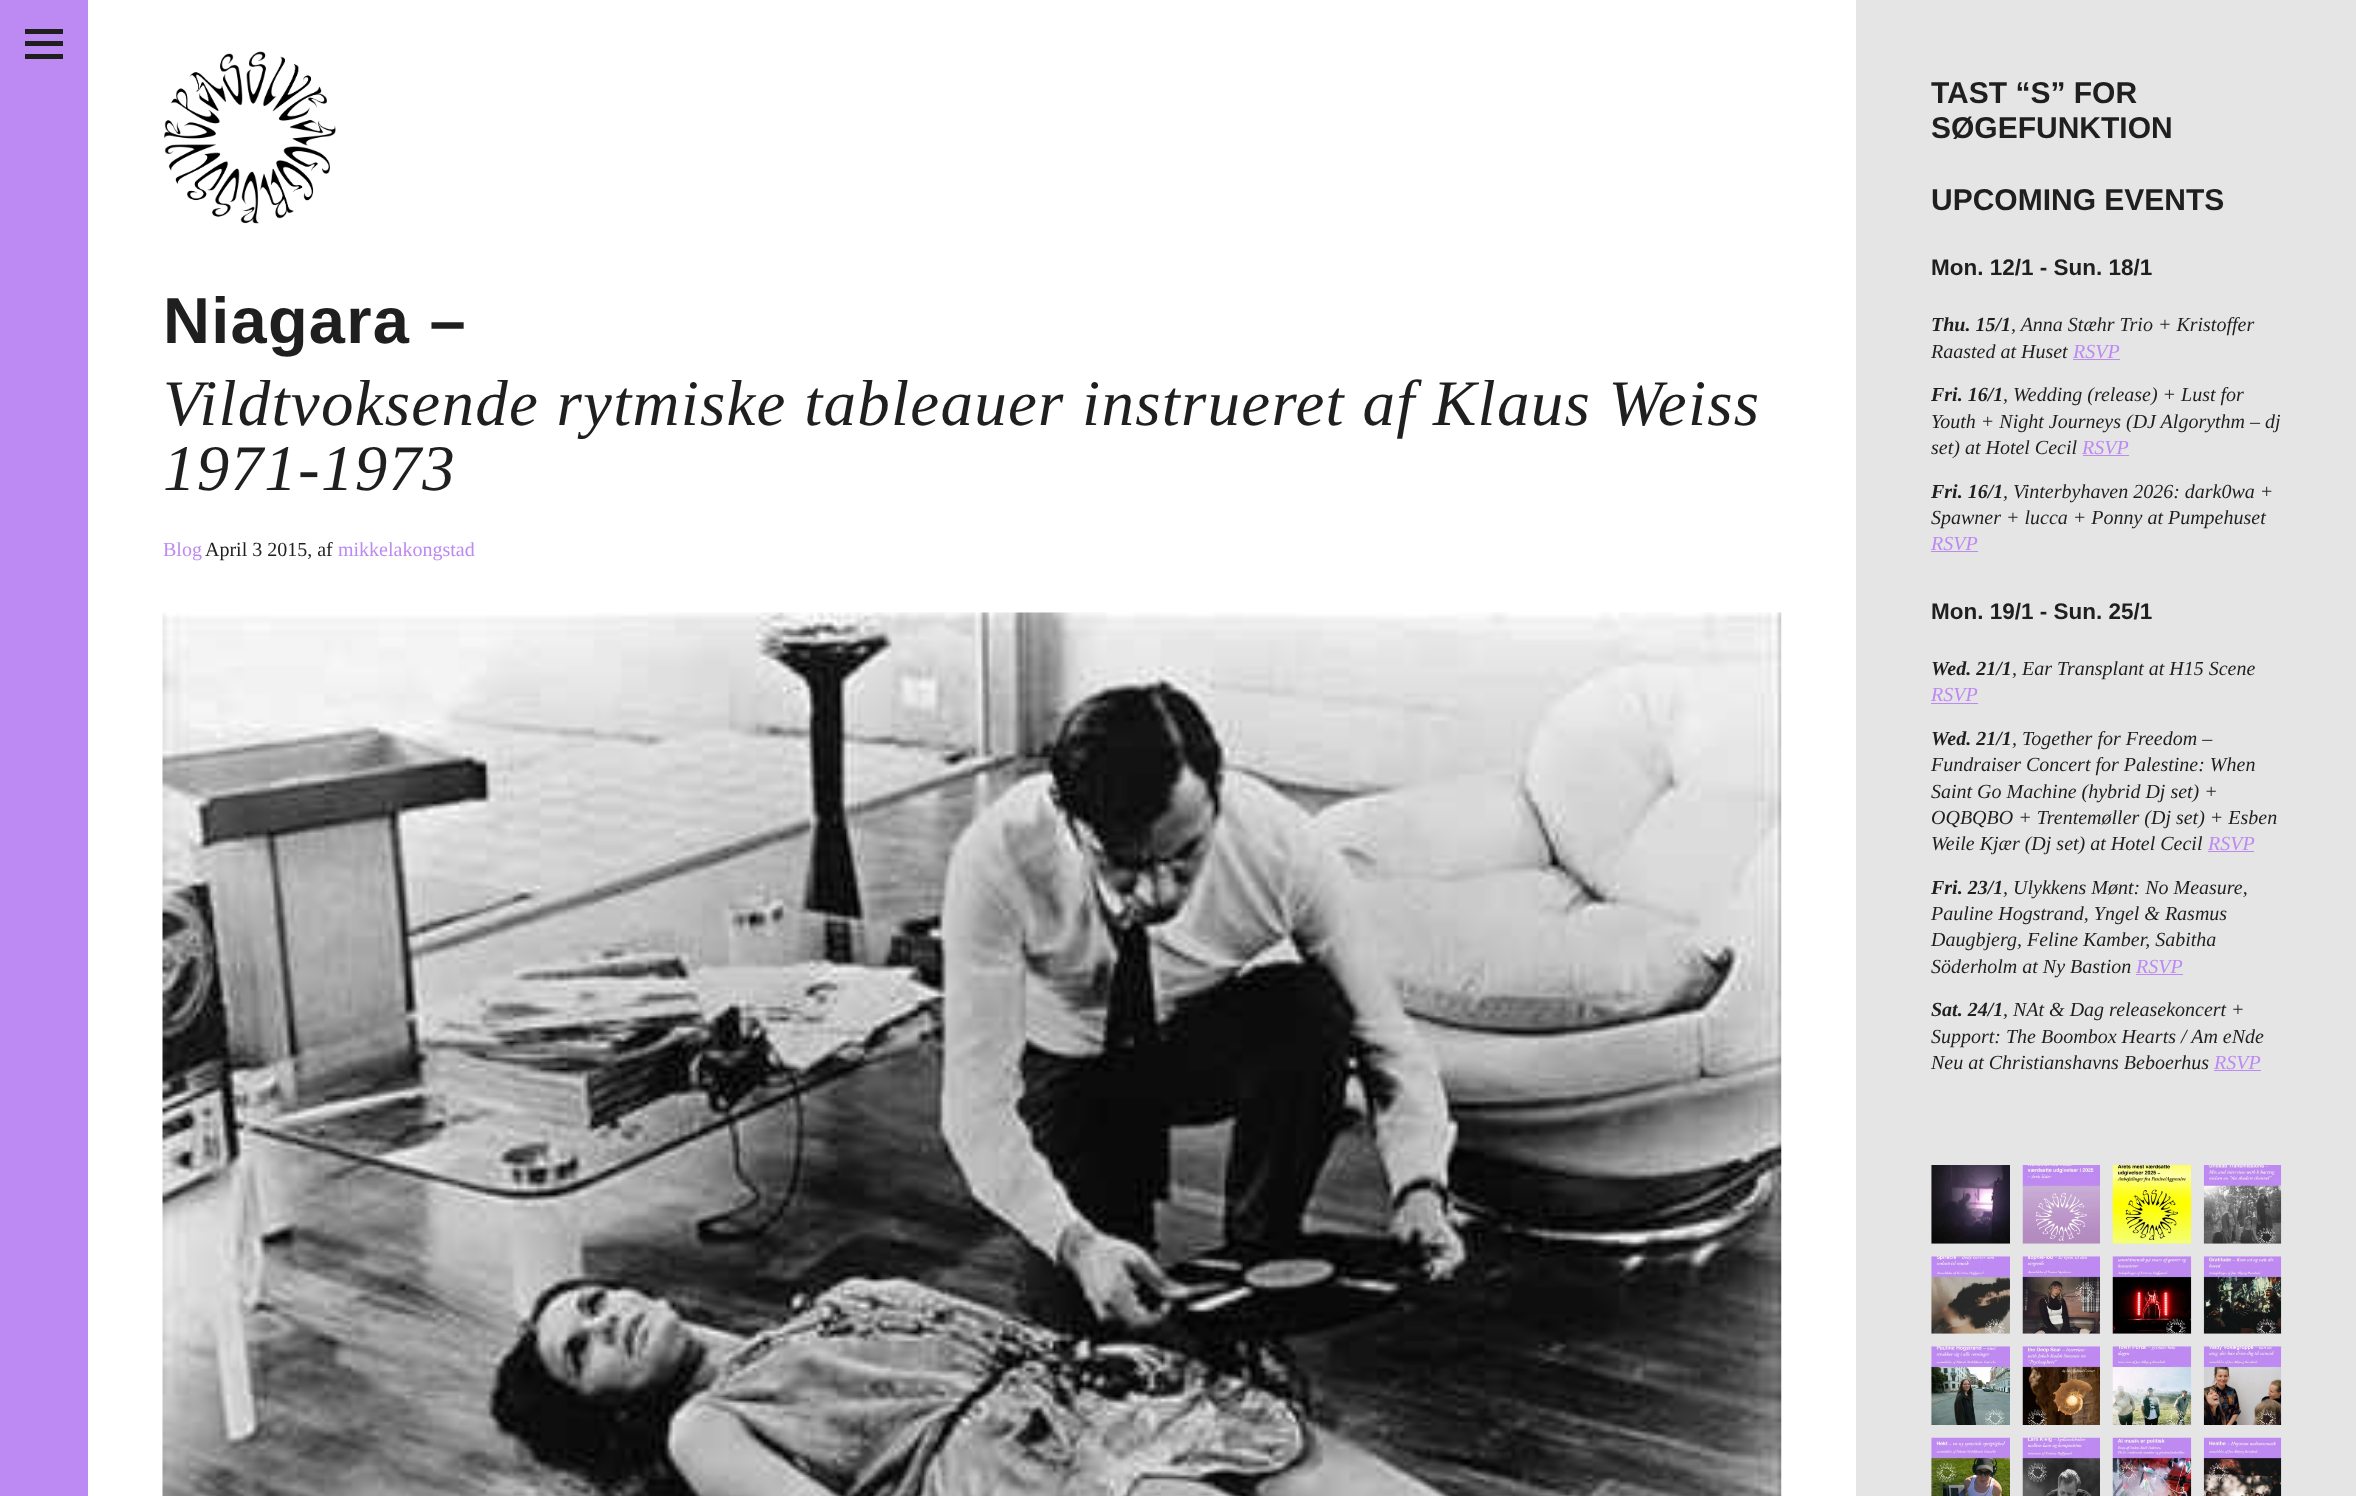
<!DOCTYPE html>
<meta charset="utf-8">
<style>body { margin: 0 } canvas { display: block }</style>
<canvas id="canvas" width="2356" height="1496"></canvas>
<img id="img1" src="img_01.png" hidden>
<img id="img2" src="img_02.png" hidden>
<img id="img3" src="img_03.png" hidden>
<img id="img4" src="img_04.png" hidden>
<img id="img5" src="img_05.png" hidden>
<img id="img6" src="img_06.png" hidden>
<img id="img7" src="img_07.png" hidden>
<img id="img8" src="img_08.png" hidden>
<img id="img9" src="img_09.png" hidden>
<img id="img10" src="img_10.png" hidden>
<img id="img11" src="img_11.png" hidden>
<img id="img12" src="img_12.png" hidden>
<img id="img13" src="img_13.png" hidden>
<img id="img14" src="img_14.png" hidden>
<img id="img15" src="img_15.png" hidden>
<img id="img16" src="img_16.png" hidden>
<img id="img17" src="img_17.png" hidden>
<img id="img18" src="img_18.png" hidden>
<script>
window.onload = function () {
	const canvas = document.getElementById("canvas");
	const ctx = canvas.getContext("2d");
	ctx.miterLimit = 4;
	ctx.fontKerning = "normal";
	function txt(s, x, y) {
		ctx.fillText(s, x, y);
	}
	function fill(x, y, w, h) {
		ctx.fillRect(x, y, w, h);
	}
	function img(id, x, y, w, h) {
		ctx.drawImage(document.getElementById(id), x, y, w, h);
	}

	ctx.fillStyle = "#FFFFFF";
	fill(0, 0, 2356, 1496);
	ctx.fillStyle = "#BD89F2";
	fill(0, 0, 88, 1496);
	ctx.fillStyle = "#1F1F1F";
	fill(25, 41, 38, 5);
	fill(25, 29, 38, 5);
	fill(25, 54, 38, 5);
	img("img1", 164, 51, 172, 173);
	img("img2", 162, 612, 1620, 884);
	ctx.fillStyle = "#E5E5E5";
	fill(1856, 0, 500, 1496);
	ctx.fillStyle = "#BD89F2";
	fill(2073, 359, 47, 1);
	fill(2083, 455, 46, 1);
	fill(1931, 551, 47, 1);
	fill(1931, 703, 47, 1);
	fill(2208, 851, 46, 1);
	fill(2136, 974, 47, 1);
	fill(2214, 1070, 47, 1);
	img("img3", 1931, 1165, 79, 79);
	img("img4", 2022, 1165, 78, 79);
	img("img5", 2112, 1165, 80, 79);
	img("img6", 2203, 1165, 79, 79);
	img("img7", 1931, 1256, 79, 78);
	img("img8", 2022, 1256, 78, 78);
	img("img9", 2112, 1256, 80, 78);
	img("img10", 2203, 1256, 79, 78);
	img("img11", 1931, 1346, 79, 79);
	img("img12", 2022, 1346, 78, 79);
	img("img13", 2112, 1346, 80, 79);
	img("img14", 2203, 1346, 79, 79);
	img("img15", 1931, 1437, 79, 59);
	img("img16", 2022, 1437, 78, 59);
	img("img17", 2112, 1437, 80, 59);
	img("img18", 2203, 1437, 79, 59);
	ctx.letterSpacing = "1.25px";
	ctx.font = "bold 65px Liberation Sans";
	ctx.fillStyle = "#1F1F1F";
	txt("Niagara –", 163, 343);
	ctx.font = "italic 65px Liberation Serif";
	txt("Vildtvoksende rytmiske tableauer instrueret af Klaus Weiss", 163, 425);
	txt("1971-1973", 163, 490);
	ctx.letterSpacing = "0px";
	ctx.font = "20px Liberation Serif";
	ctx.fillStyle = "#BD89F2";
	txt("Blog", 163, 556);
	ctx.fillStyle = "#1F1F1F";
	txt("April 3 2015, af", 205, 556);
	ctx.fillStyle = "#BD89F2";
	txt("mikkelakongstad", 338, 556);
	ctx.font = "bold 30px Liberation Sans";
	ctx.fillStyle = "#1F1F1F";
	txt("TAST “S” FOR", 1931, 103);
	txt("SØGEFUNKTION", 1931, 138);
	txt("UPCOMING EVENTS", 1931, 210);
	ctx.font = "bold 22.5px Liberation Sans";
	txt("Mon. 12/1 - Sun. 18/1", 1931, 275);
	ctx.font = "italic bold 20px Liberation Serif";
	txt("Thu. 15/1", 1931, 331);
	ctx.font = "italic 20px Liberation Serif";
	txt(", Anna Stæhr Trio + Kristoffer", 2011, 331);
	txt("Raasted at Huset", 1931, 358);
	ctx.fillStyle = "#BD89F2";
	txt("RSVP", 2073, 358);
	ctx.font = "italic bold 20px Liberation Serif";
	ctx.fillStyle = "#1F1F1F";
	txt("Fri. 16/1", 1931, 401);
	ctx.font = "italic 20px Liberation Serif";
	txt(", Wedding (release) + Lust for", 2003, 401);
	txt("Youth + Night Journeys (DJ Algorythm – dj", 1931, 428);
	txt("set) at Hotel Cecil", 1931, 454);
	ctx.fillStyle = "#BD89F2";
	txt("RSVP", 2082, 454);
	ctx.font = "italic bold 20px Liberation Serif";
	ctx.fillStyle = "#1F1F1F";
	txt("Fri. 16/1", 1931, 498);
	ctx.font = "italic 20px Liberation Serif";
	txt(", Vinterbyhaven 2026: dark0wa +", 2003, 498);
	txt("Spawner + lucca + Ponny at Pumpehuset", 1931, 524);
	ctx.fillStyle = "#BD89F2";
	txt("RSVP", 1931, 550);
	ctx.font = "bold 22.5px Liberation Sans";
	ctx.fillStyle = "#1F1F1F";
	txt("Mon. 19/1 - Sun. 25/1", 1931, 619);
	ctx.font = "italic bold 20px Liberation Serif";
	txt("Wed. 21/1", 1931, 675);
	ctx.font = "italic 20px Liberation Serif";
	txt(", Ear Transplant at H15 Scene", 2012, 675);
	ctx.fillStyle = "#BD89F2";
	txt("RSVP", 1931, 701);
	ctx.font = "italic bold 20px Liberation Serif";
	ctx.fillStyle = "#1F1F1F";
	txt("Wed. 21/1", 1931, 745);
	ctx.font = "italic 20px Liberation Serif";
	txt(", Together for Freedom –", 2012, 745);
	txt("Fundraiser Concert for Palestine: ‍When", 1931, 771);
	txt("Saint Go Machine (hybrid Dj set) +", 1931, 798);
	txt("OQBQBO + Trentemøller (Dj set) + Esben", 1931, 824);
	txt("Weile Kjær (Dj set) at Hotel Cecil", 1931, 850);
	ctx.fillStyle = "#BD89F2";
	txt("RSVP", 2208, 850);
	ctx.font = "italic bold 20px Liberation Serif";
	ctx.fillStyle = "#1F1F1F";
	txt("Fri. 23/1", 1931, 894);
	ctx.font = "italic 20px Liberation Serif";
	txt(", Ulykkens Mønt: No Measure,", 2003, 894);
	txt("Pauline Hogstrand, Yngel & Rasmus", 1931, 920);
	txt("Daugbjerg, Feline Kamber, Sabitha", 1931, 946);
	txt("Söderholm at Ny Bastion", 1931, 973);
	ctx.fillStyle = "#BD89F2";
	txt("RSVP", 2136, 973);
	ctx.font = "italic bold 20px Liberation Serif";
	ctx.fillStyle = "#1F1F1F";
	txt("Sat. 24/1", 1931, 1016);
	ctx.font = "italic 20px Liberation Serif";
	txt(", NAt & Dag releasekoncert +", 2003, 1016);
	txt("Support: The Boombox Hearts / Am eNde", 1931, 1043);
	txt("Neu at Christianshavns Beboerhus", 1931, 1069);
	ctx.fillStyle = "#BD89F2";
	txt("RSVP", 2214, 1069);
};
</script>
